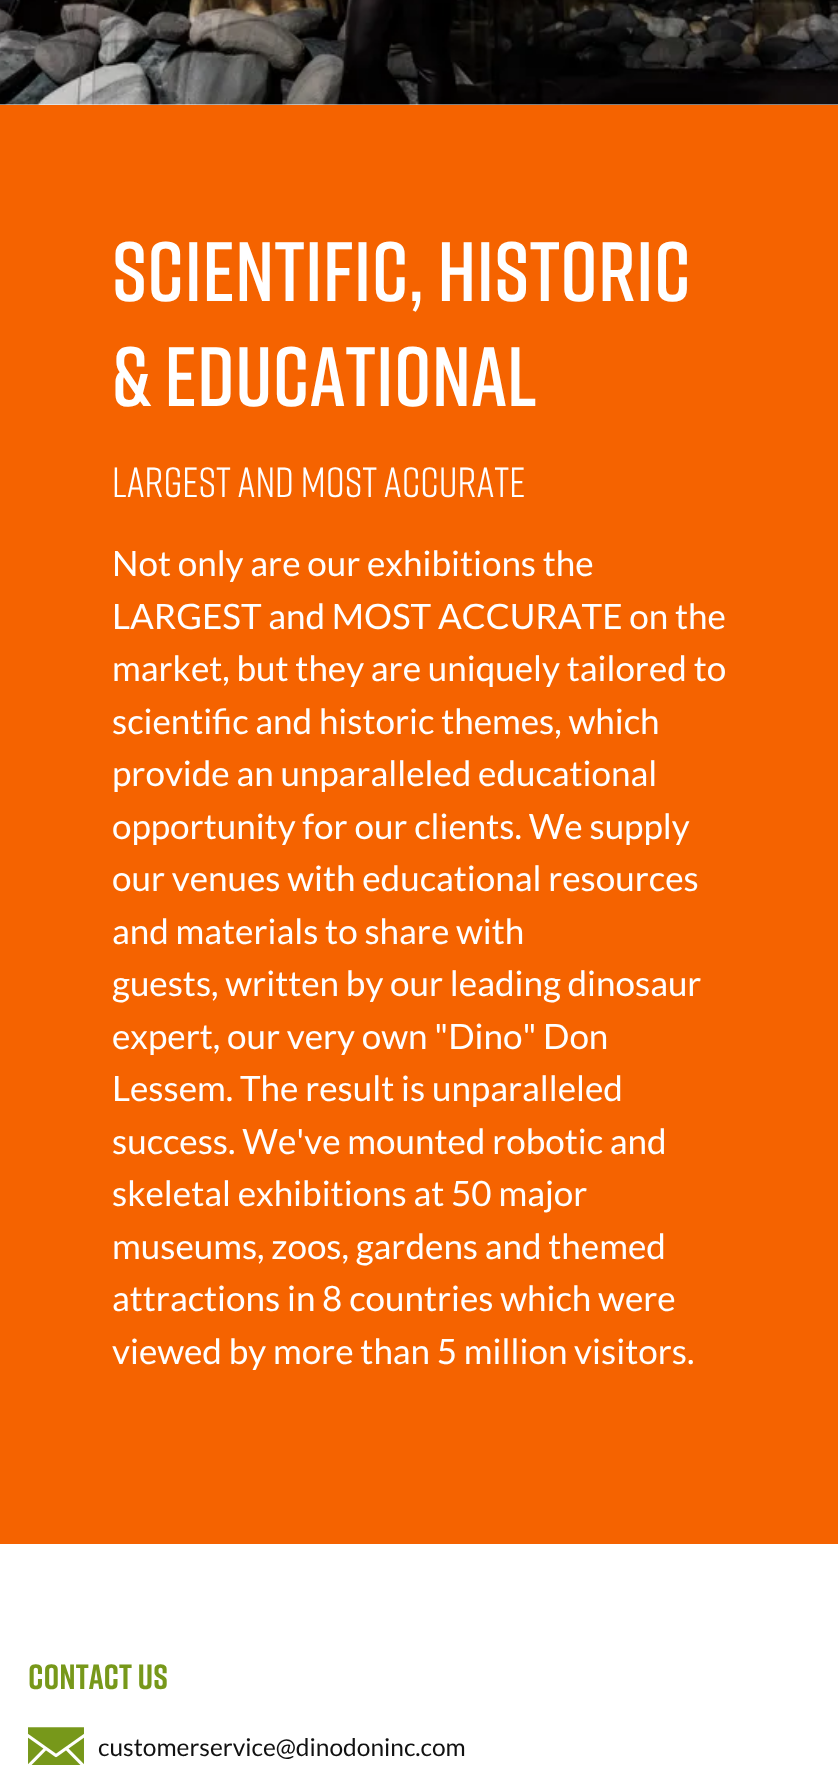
<!DOCTYPE html>
<meta charset="utf-8">
<style>body { margin: 0 } canvas { display: block }</style>
<canvas id="canvas" width="838" height="1765"></canvas>
<img id="img1" src="img_01.png" hidden>
<img id="img2" src="img_02.png" hidden>
<script>
window.onload = function () {
	const canvas = document.getElementById("canvas");
	const ctx = canvas.getContext("2d");
	ctx.miterLimit = 4;
	ctx.fontKerning = "none";
	function txt(s, x, y) {
		ctx.fillText(s, x, y);
	}
	function fill(x, y, w, h) {
		ctx.fillRect(x, y, w, h);
	}
	function img(id, x, y, w, h) {
		ctx.drawImage(document.getElementById(id), x, y, w, h);
	}

	ctx.fillStyle = "#FFFFFF";
	fill(0, 0, 838, 1765);
	img("img1", 0, 0, 838, 105);
	ctx.fillStyle = "#F56300";
	fill(0, 105, 838, 1439);
	img("img2", 28, 1727, 56, 38);
	ctx.font = "600 84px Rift";
	ctx.fillStyle = "#FFFFFF";
	txt("Scientific, Historic", 112, 301);
	txt("& Educational", 112, 406);
	ctx.font = "42px Rift";
	txt("LARGEST and MOST ACCURATE", 112, 497);
	ctx.font = "35px Lato";
	txt("Not only are our exhibitions the", 112, 576);
	txt("LARGEST and MOST ACCURATE on the", 112, 629);
	txt("market, but they are uniquely tailored to", 112, 681);
	txt("scientific and historic themes, which", 112, 734);
	txt("provide an unparalleled educational", 112, 786);
	txt("opportunity for our clients. We supply", 112, 839);
	txt("our venues with educational resources", 112, 891);
	txt("and materials to share with", 112, 944);
	txt("guests, written by our leading dinosaur", 112, 996);
	txt("expert, our very own \"Dino\" Don", 112, 1049);
	txt("Lessem. The result is unparalleled", 112, 1101);
	txt("success. We've mounted robotic and", 112, 1154);
	txt("skeletal exhibitions at 50 major", 112, 1206);
	txt("museums, zoos, gardens and themed", 112, 1259);
	txt("attractions in 8 countries which were", 112, 1311);
	txt("viewed by more than 5 million visitors.", 112, 1364);
	ctx.font = "bold 35px Rift";
	ctx.fillStyle = "#77981A";
	txt("CONTACT US", 28, 1689);
	ctx.font = "24.5px Lato";
	ctx.fillStyle = "#111111";
	txt("customerservice@dinodoninc.com", 98, 1756);
};
</script>
